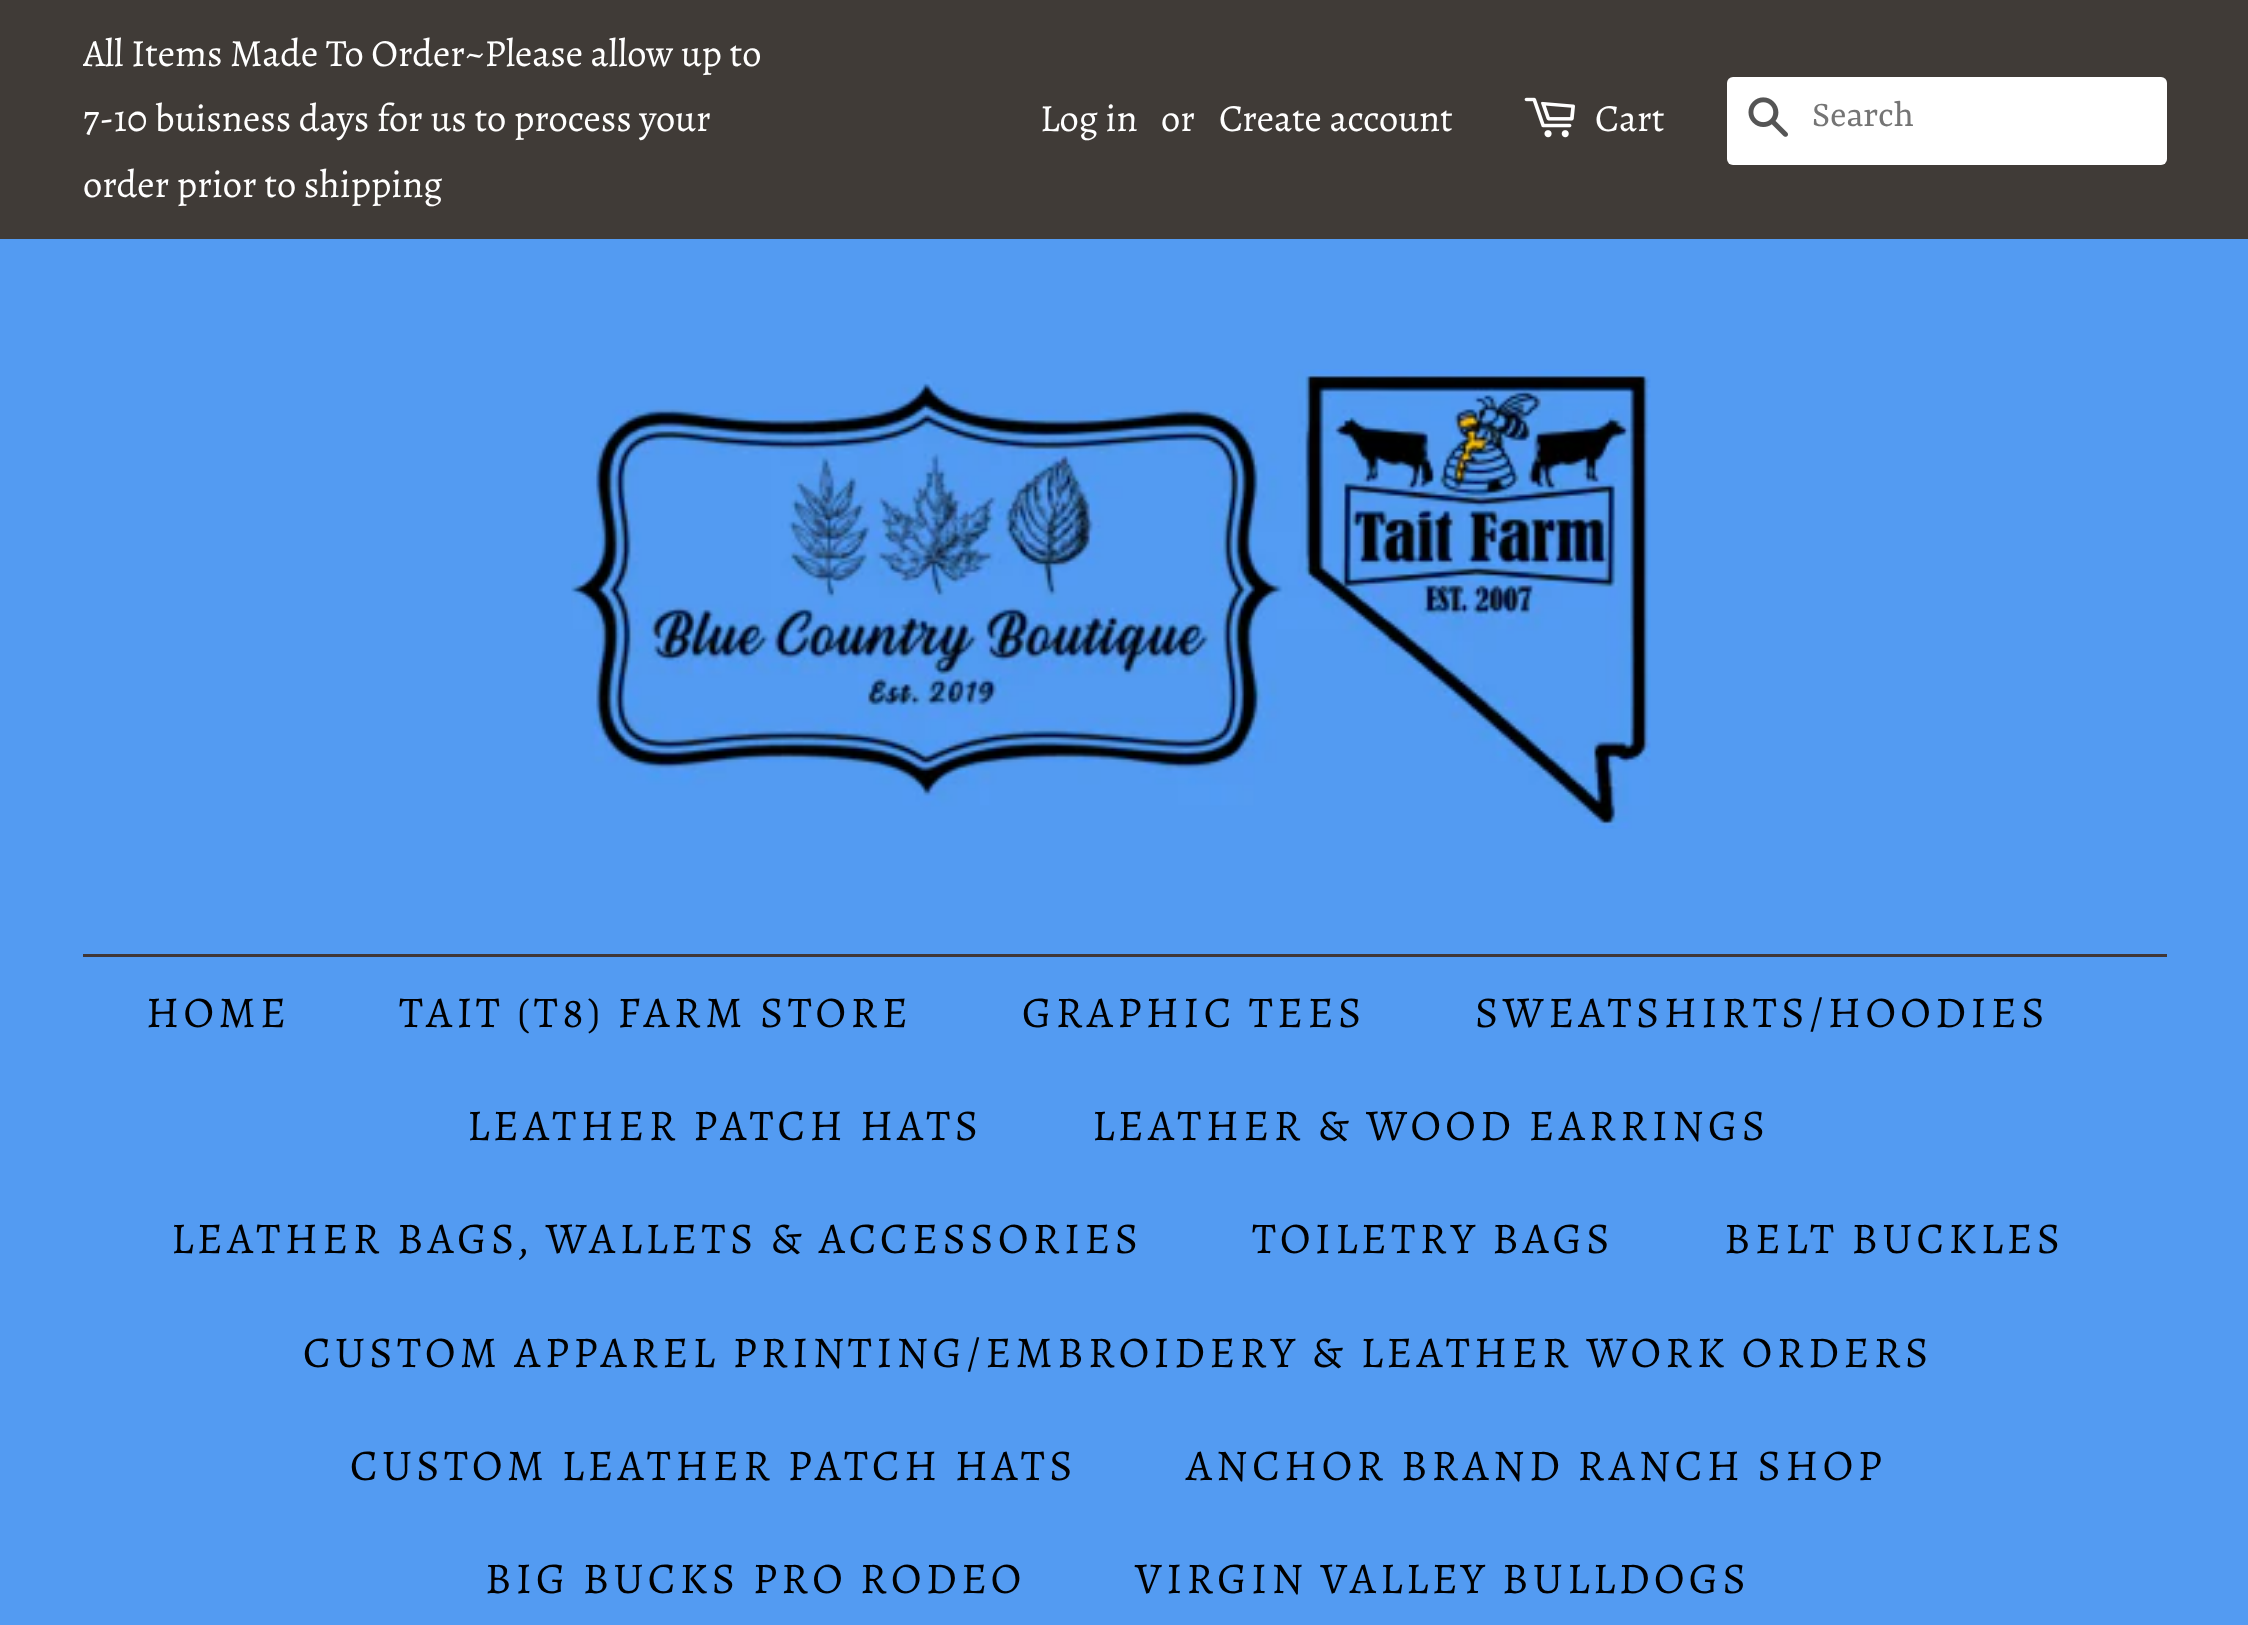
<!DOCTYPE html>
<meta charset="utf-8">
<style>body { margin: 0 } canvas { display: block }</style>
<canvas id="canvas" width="2248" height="1625"></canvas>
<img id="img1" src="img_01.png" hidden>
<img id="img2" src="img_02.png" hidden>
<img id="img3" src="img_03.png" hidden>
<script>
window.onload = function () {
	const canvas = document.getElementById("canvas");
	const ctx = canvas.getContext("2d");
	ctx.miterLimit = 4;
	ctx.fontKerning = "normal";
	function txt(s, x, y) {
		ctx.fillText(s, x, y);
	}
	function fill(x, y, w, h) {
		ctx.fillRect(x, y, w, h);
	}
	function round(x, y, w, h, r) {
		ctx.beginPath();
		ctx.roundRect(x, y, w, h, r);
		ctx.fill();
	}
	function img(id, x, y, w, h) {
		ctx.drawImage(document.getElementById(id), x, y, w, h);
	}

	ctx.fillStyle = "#539BF2";
	fill(0, 0, 2248, 1625);
	ctx.fillStyle = "#403B37";
	fill(0, 0, 2248, 239);
	img("img1", 1524, 97, 51, 41);
	ctx.fillStyle = "#FFFFFF";
	round(1727, 77, 440, 88, 6);
	img("img2", 1748, 97, 40, 40);
	img("img3", 571, 369, 1080, 460);
	ctx.fillStyle = "#403737";
	fill(83, 954, 2084, 3);
	ctx.save();
	ctx.beginPath();
	ctx.rect(83, 22, 695, 195);
	ctx.clip();
	ctx.font = "38.5px Alegreya";
	ctx.fillStyle = "#FFFFFF";
	txt("All Items Made To Order~Please allow up to", 83, 66);
	ctx.restore();
	ctx.font = "38.5px Alegreya";
	ctx.fillStyle = "#FFFFFF";
	txt("7-10 buisness days for us to process your", 83, 131);
	txt("order prior to shipping", 83, 197);
	txt("Log in", 1040, 131);
	txt("or", 1161, 131);
	txt("Create account", 1219, 131);
	txt("Cart", 1595, 131);
	ctx.font = "38.5px Rasa";
	ctx.fillStyle = "#757575";
	txt("Search", 1812, 126);
	ctx.letterSpacing = "4.4px";
	ctx.font = "44px Alegreya";
	ctx.fillStyle = "#000000";
	txt("HOME", 146, 1027);
	txt("TAIT (T8) FARM STORE", 399, 1027);
	txt("GRAPHIC TEES", 1022, 1027);
	txt("SWEATSHIRTS/HOODIES", 1475, 1027);
	txt("LEATHER PATCH HATS", 467, 1140);
	txt("LEATHER & WOOD EARRINGS", 1092, 1140);
	txt("LEATHER BAGS, WALLETS & ACCESSORIES", 171, 1253);
	txt("TOILETRY BAGS", 1252, 1253);
	txt("BELT BUCKLES", 1724, 1253);
	txt("CUSTOM APPAREL PRINTING/EMBROIDERY & LEATHER WORK ORDERS", 303, 1367);
	txt("CUSTOM LEATHER PATCH HATS", 350, 1480);
	txt("ANCHOR BRAND RANCH SHOP", 1186, 1480);
	txt("BIG BUCKS PRO RODEO", 485, 1593);
	txt("VIRGIN VALLEY BULLDOGS", 1135, 1593);
};
</script>
